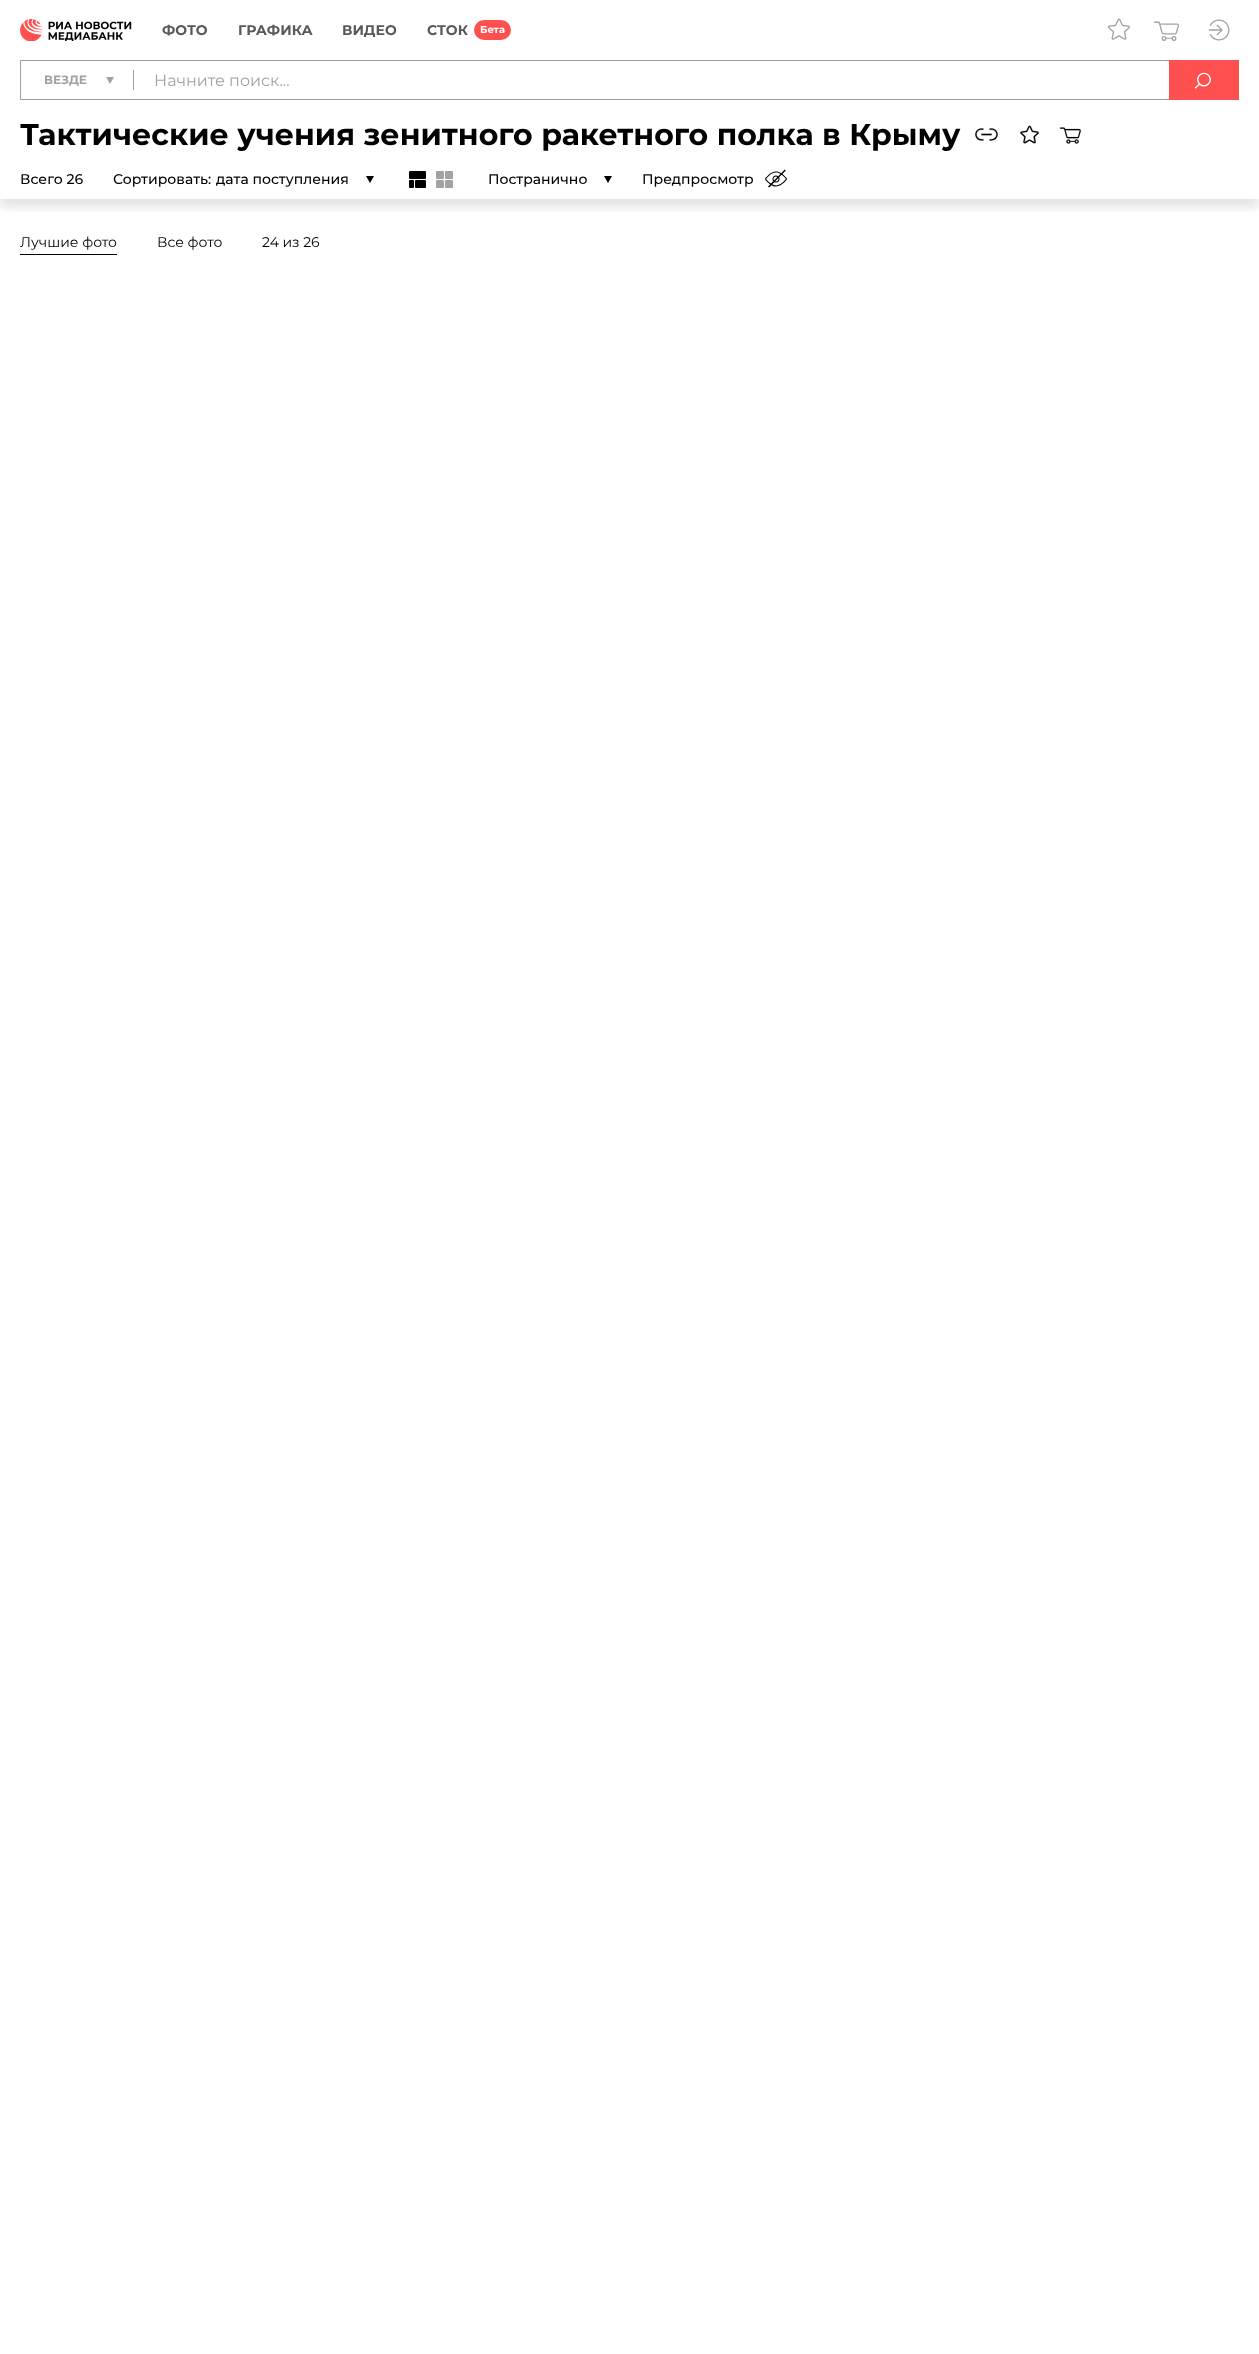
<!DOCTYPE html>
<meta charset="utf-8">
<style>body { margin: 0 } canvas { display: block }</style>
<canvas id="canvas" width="1259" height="2354"></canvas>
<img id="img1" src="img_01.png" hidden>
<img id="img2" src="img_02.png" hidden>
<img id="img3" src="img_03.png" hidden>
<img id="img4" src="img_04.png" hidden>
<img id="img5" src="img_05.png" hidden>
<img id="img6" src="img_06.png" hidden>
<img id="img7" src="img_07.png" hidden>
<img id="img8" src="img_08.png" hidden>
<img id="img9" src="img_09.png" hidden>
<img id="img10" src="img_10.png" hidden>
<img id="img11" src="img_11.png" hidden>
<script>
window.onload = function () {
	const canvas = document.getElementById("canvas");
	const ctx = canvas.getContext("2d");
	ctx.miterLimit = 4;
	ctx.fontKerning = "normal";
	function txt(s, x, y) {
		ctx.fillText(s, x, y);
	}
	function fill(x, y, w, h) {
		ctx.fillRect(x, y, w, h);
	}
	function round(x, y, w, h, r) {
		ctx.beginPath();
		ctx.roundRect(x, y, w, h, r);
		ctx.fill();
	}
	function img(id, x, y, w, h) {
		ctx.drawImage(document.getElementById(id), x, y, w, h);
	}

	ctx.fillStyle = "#FFFFFF";
	fill(0, 0, 1259, 2354);
	ctx.save();
	ctx.beginPath();
	ctx.rect(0, 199, 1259, 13);
	ctx.clip();
	ctx.fillStyle = "rgba(0, 0, 0, 0.1)";
	ctx.filter = "blur(5px)";
	ctx.beginPath();
	ctx.rect(0, 9, 1259, 199);
	ctx.fill();
	ctx.filter = "none";
	ctx.restore();
	img("img1", 20, 19, 112, 22);
	ctx.fillStyle = "#FF5050";
	round(474, 20, 37, 20, 10);
	img("img2", 1108, 18, 22, 22);
	img("img3", 1154, 21, 25, 20);
	img("img4", 1209, 19, 21, 22);
	ctx.fillStyle = "#A3A2A2";
	fill(20, 60, 1149, 1);
	fill(20, 99, 1149, 1);
	fill(20, 60, 1, 40);
	ctx.beginPath();
	ctx.moveTo(106, 77);
	ctx.lineTo(114, 77);
	ctx.lineTo(110, 84);
	ctx.closePath();
	ctx.fill();
	fill(133, 70, 1, 20);
	ctx.fillStyle = "#FF5050";
	fill(1169, 60, 70, 40);
	img("img5", 1194, 72, 17, 17);
	img("img6", 974, 128, 25, 13);
	img("img7", 1019, 125, 21, 19);
	img("img8", 1059, 127, 23, 17);
	ctx.fillStyle = "#000000";
	ctx.beginPath();
	ctx.moveTo(366, 176);
	ctx.lineTo(374, 176);
	ctx.lineTo(370, 183);
	ctx.closePath();
	ctx.fill();
	img("img9", 409, 171, 17, 17);
	img("img10", 436, 171, 17, 17);
	ctx.beginPath();
	ctx.moveTo(604, 176);
	ctx.lineTo(612, 176);
	ctx.lineTo(608, 183);
	ctx.closePath();
	ctx.fill();
	img("img11", 764, 169, 24, 19);
	fill(20, 254, 97, 1);
	ctx.font = "bold 14px Montserrat";
	ctx.fillStyle = "#595959";
	txt("ФОТО", 162, 35);
	txt("ГРАФИКА", 238, 35);
	txt("ВИДЕО", 342, 35);
	txt("СТОК", 427, 35);
	ctx.font = "bold 10px Montserrat";
	ctx.fillStyle = "#FFFFFF";
	txt("Бета", 480, 33);
	ctx.font = "bold 12px Montserrat";
	ctx.fillStyle = "#A3A2A2";
	txt("ВЕЗДЕ", 44, 84);
	ctx.font = "16px Montserrat";
	txt("Начните поиск...", 154, 86);
	ctx.font = "bold 30px Montserrat";
	ctx.fillStyle = "#000000";
	txt("Тактические учения зенитного ракетного полка в Крыму", 20, 145);
	ctx.font = "500 14px Montserrat";
	txt("Всего 26", 20, 184);
	txt("Сортировать:", 113, 184);
	txt("дата поступления", 216, 184);
	txt("Постранично", 488, 184);
	txt("Предпросмотр", 642, 184);
	ctx.font = "14px Montserrat";
	txt("Лучшие фото", 20, 247);
	txt("Все фото", 157, 247);
	txt("24 из 26", 262, 247);
};
</script>
